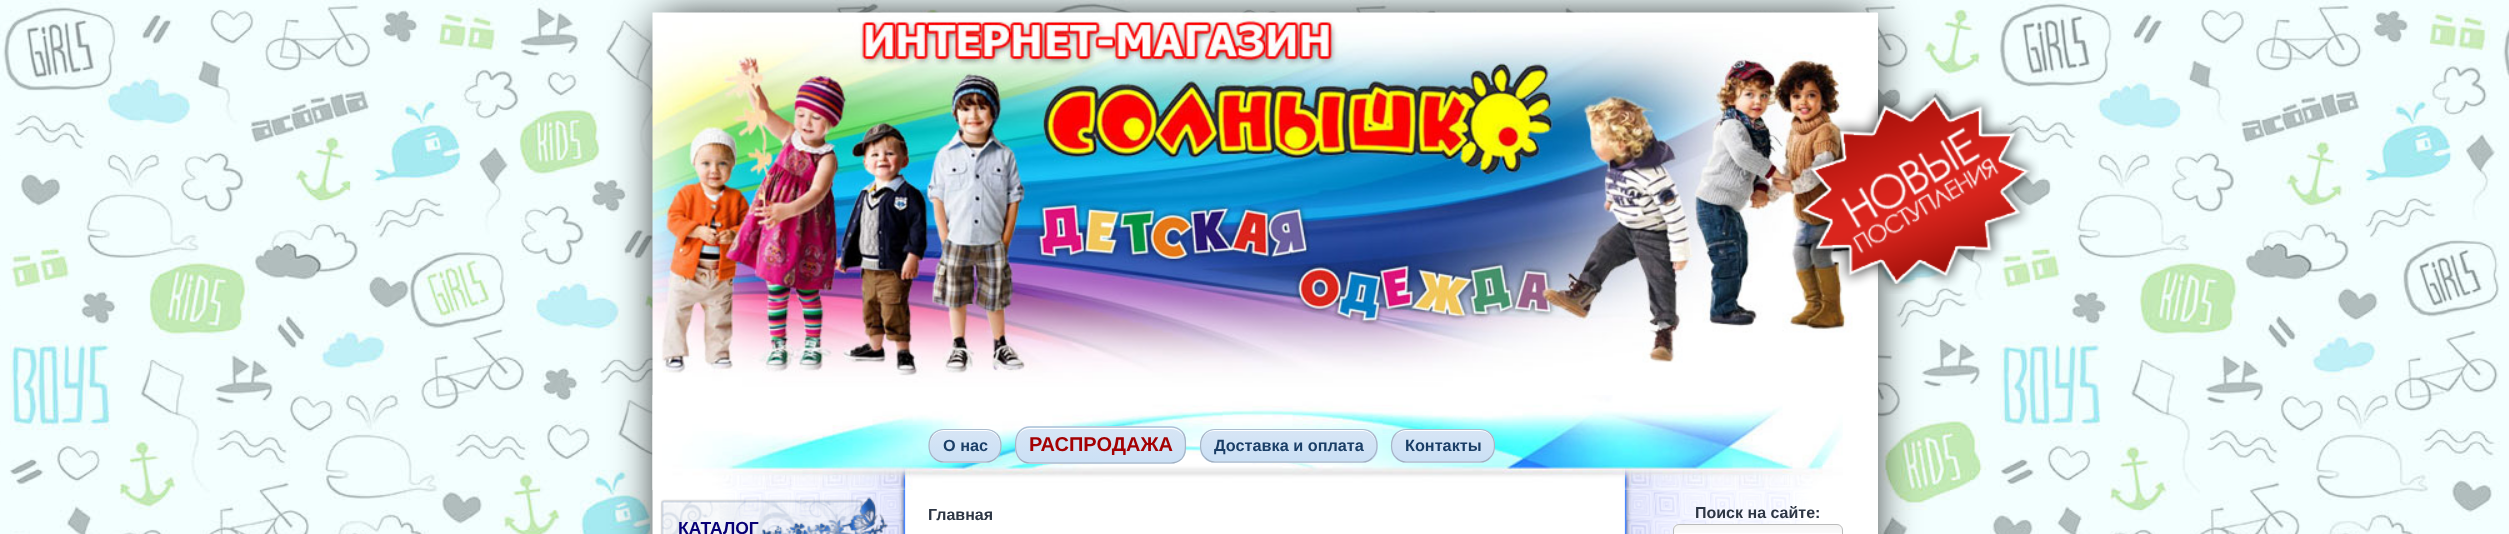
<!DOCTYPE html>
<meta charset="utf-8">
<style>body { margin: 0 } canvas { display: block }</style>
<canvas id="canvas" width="2509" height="534"></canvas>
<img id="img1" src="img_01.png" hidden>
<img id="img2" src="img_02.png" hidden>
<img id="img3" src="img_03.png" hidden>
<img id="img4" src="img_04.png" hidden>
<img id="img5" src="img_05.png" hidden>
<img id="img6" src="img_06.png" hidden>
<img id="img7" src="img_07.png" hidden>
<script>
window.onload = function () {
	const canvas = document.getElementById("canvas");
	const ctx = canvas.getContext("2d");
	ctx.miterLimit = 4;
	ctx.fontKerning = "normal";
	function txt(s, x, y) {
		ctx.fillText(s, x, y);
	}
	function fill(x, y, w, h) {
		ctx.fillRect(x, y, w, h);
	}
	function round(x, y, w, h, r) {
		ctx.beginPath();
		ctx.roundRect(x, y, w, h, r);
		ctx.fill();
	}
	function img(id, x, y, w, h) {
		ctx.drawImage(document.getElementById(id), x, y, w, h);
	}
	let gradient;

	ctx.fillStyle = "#FFFFFF";
	fill(0, 0, 2509, 534);
	img("img1", 0, 0, 2509, 534);
	ctx.fillStyle = "#000000";
	ctx.filter = "blur(22.5px)";
	ctx.beginPath();
	ctx.rect(660, 20, 1210, 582);
	ctx.fill();
	ctx.filter = "none";
	ctx.fillStyle = "#FFFFFF";
	fill(1809, 13, 69, 521);
	img("img2", 652, 12, 1226, 383);
	img("img3", 652, 395, 1191, 95);
	ctx.fillStyle = "rgba(255, 255, 255, 0.5)";
	fill(652, 395, 1, 95);
	ctx.save();
	ctx.beginPath();
	ctx.roundRect(929, 429, 72, 34, 15);
	ctx.clip();
	gradient = ctx.createLinearGradient(930, 430, 930, 461);
	gradient.addColorStop(0, "#D7E5F5");
	gradient.addColorStop(1, "#CBE0F5");
	ctx.fillStyle = gradient;
	fill(929, 430, 72, 31);
	gradient = ctx.createLinearGradient(930, 461, 930, 493);
	gradient.addColorStop(0, "#D7E5F5");
	gradient.addColorStop(1, "#CBE0F5");
	ctx.fillStyle = gradient;
	fill(929, 461, 72, 2);
	ctx.restore();
	ctx.fillStyle = "#FFFFFF";
	ctx.beginPath();
	ctx.moveTo(944, 431);
	ctx.lineTo(986, 431);
	ctx.bezierCurveTo(994, 431, 1000, 437, 1000, 445);
	ctx.lineTo(1000, 444);
	ctx.bezierCurveTo(1000, 436, 994, 430, 986, 430);
	ctx.lineTo(944, 430);
	ctx.bezierCurveTo(936, 430, 930, 436, 930, 444);
	ctx.lineTo(930, 445);
	ctx.bezierCurveTo(930, 437, 936, 431, 944, 431);
	ctx.closePath();
	ctx.fill();
	ctx.beginPath();
	ctx.moveTo(933.5, 433.5);
	ctx.bezierCurveTo(936.5, 431, 940, 429.5, 944, 429.5);
	ctx.lineTo(986, 429.5);
	ctx.bezierCurveTo(990, 429.5, 993.5, 431, 996.5, 433.5);
	ctx.strokeStyle = "#ABBBCC";
	ctx.lineWidth = 1.2;
	ctx.stroke();
	ctx.beginPath();
	ctx.moveTo(996.5, 433.5);
	ctx.bezierCurveTo(1002.5, 439.5, 1002.5, 452, 996.5, 457.5);
	ctx.strokeStyle = "#A7B6C7";
	ctx.stroke();
	ctx.beginPath();
	ctx.moveTo(996.5, 457.5);
	ctx.bezierCurveTo(993.5, 460.5, 990, 462, 986, 462);
	ctx.lineTo(944, 462);
	ctx.bezierCurveTo(940, 462, 936.5, 460.5, 933.5, 457.5);
	ctx.strokeStyle = "#A1AFBF";
	ctx.stroke();
	ctx.beginPath();
	ctx.moveTo(933.5, 457.5);
	ctx.bezierCurveTo(927.5, 452, 927.5, 439.5, 933.5, 433.5);
	ctx.strokeStyle = "#A7B6C7";
	ctx.stroke();
	ctx.save();
	ctx.beginPath();
	ctx.roundRect(1015, 426, 171, 38, 15);
	ctx.clip();
	gradient = ctx.createLinearGradient(1016, 393, 1016, 428);
	gradient.addColorStop(0, "#D7E5F5");
	gradient.addColorStop(1, "#CBE0F5");
	ctx.fillStyle = gradient;
	fill(1015, 426, 171, 2);
	gradient = ctx.createLinearGradient(1016, 428, 1016, 463);
	gradient.addColorStop(0, "#D7E5F5");
	gradient.addColorStop(1, "#CBE0F5");
	ctx.fillStyle = gradient;
	fill(1015, 428, 171, 35);
	gradient = ctx.createLinearGradient(1016, 463, 1016, 498);
	gradient.addColorStop(0, "#D7E5F5");
	gradient.addColorStop(1, "#CBE0F5");
	ctx.fillStyle = gradient;
	fill(1025, 463, 151, 1);
	ctx.restore();
	ctx.beginPath();
	ctx.moveTo(1030, 429);
	ctx.lineTo(1171, 429);
	ctx.bezierCurveTo(1179, 429, 1185, 435, 1185, 442);
	ctx.bezierCurveTo(1185, 434, 1179, 428, 1171, 428);
	ctx.lineTo(1030, 428);
	ctx.bezierCurveTo(1022, 428, 1016, 434, 1016, 442);
	ctx.bezierCurveTo(1016, 435, 1022, 429, 1030, 429);
	ctx.closePath();
	ctx.fill();
	ctx.beginPath();
	ctx.moveTo(1020, 431);
	ctx.bezierCurveTo(1022.5, 428.5, 1026, 427, 1030, 427);
	ctx.lineTo(1171, 427);
	ctx.bezierCurveTo(1175, 427, 1178.5, 428.5, 1181.5, 431);
	ctx.strokeStyle = "#ABBBCC";
	ctx.stroke();
	ctx.beginPath();
	ctx.moveTo(1181.5, 431);
	ctx.bezierCurveTo(1185.5, 435, 1185.5, 440, 1185.5, 445);
	ctx.bezierCurveTo(1185.5, 450, 1185.5, 455, 1181.5, 459);
	ctx.strokeStyle = "#A7B6C7";
	ctx.stroke();
	ctx.beginPath();
	ctx.moveTo(1181.5, 459);
	ctx.bezierCurveTo(1178.5, 461.5, 1175, 463, 1171, 463);
	ctx.lineTo(1030, 463);
	ctx.bezierCurveTo(1026, 463, 1022.5, 461.5, 1020, 459);
	ctx.strokeStyle = "#A1AFBF";
	ctx.stroke();
	ctx.beginPath();
	ctx.moveTo(1020, 459);
	ctx.bezierCurveTo(1016, 455, 1015.5, 450, 1015.5, 445);
	ctx.bezierCurveTo(1015.5, 440, 1016, 435, 1020, 431);
	ctx.strokeStyle = "#A7B6C7";
	ctx.stroke();
	ctx.save();
	ctx.beginPath();
	ctx.roundRect(1200, 429, 178, 34, 15);
	ctx.clip();
	gradient = ctx.createLinearGradient(1201, 430, 1201, 461);
	gradient.addColorStop(0, "#D7E5F5");
	gradient.addColorStop(1, "#CBE0F5");
	ctx.fillStyle = gradient;
	fill(1200, 430, 178, 31);
	gradient = ctx.createLinearGradient(1201, 461, 1201, 493);
	gradient.addColorStop(0, "#D7E5F5");
	gradient.addColorStop(1, "#CBE0F5");
	ctx.fillStyle = gradient;
	fill(1200, 461, 178, 2);
	ctx.restore();
	ctx.beginPath();
	ctx.moveTo(1215, 431);
	ctx.lineTo(1362, 431);
	ctx.bezierCurveTo(1370, 431, 1376, 437, 1376, 445);
	ctx.bezierCurveTo(1376, 424, 1350, 430, 1338, 430);
	ctx.lineTo(1240, 430);
	ctx.bezierCurveTo(1227, 430, 1201, 424, 1201, 445);
	ctx.bezierCurveTo(1201, 437, 1207, 431, 1215, 431);
	ctx.closePath();
	ctx.fill();
	ctx.beginPath();
	ctx.moveTo(1205, 433.5);
	ctx.bezierCurveTo(1207.5, 431, 1211, 429.5, 1215, 429.5);
	ctx.lineTo(1362.5, 429.5);
	ctx.bezierCurveTo(1366.5, 429.5, 1370, 431, 1372.5, 433.5);
	ctx.strokeStyle = "#ABBBCC";
	ctx.stroke();
	ctx.beginPath();
	ctx.moveTo(1372.5, 433.5);
	ctx.bezierCurveTo(1378.5, 439.5, 1378.5, 452, 1372.5, 457.5);
	ctx.strokeStyle = "#A7B6C7";
	ctx.stroke();
	ctx.beginPath();
	ctx.moveTo(1372.5, 457.5);
	ctx.bezierCurveTo(1370, 460.5, 1366.5, 462, 1362.5, 462);
	ctx.lineTo(1215, 462);
	ctx.bezierCurveTo(1211, 462, 1207.5, 460.5, 1205, 457.5);
	ctx.strokeStyle = "#A1AFBF";
	ctx.stroke();
	ctx.beginPath();
	ctx.moveTo(1205, 457.5);
	ctx.bezierCurveTo(1199, 452, 1199, 439.5, 1205, 433.5);
	ctx.strokeStyle = "#A7B6C7";
	ctx.stroke();
	ctx.save();
	ctx.beginPath();
	ctx.roundRect(1391, 429, 104, 34, 15);
	ctx.clip();
	gradient = ctx.createLinearGradient(1393, 430, 1393, 461);
	gradient.addColorStop(0, "#D7E5F5");
	gradient.addColorStop(1, "#CBE0F5");
	ctx.fillStyle = gradient;
	fill(1391, 430, 104, 31);
	gradient = ctx.createLinearGradient(1393, 461, 1393, 493);
	gradient.addColorStop(0, "#D7E5F5");
	gradient.addColorStop(1, "#CBE0F5");
	ctx.fillStyle = gradient;
	fill(1391, 461, 104, 2);
	ctx.restore();
	ctx.beginPath();
	ctx.moveTo(1406, 431);
	ctx.lineTo(1480, 431);
	ctx.bezierCurveTo(1488, 431, 1494, 437, 1494, 445);
	ctx.lineTo(1494, 444);
	ctx.bezierCurveTo(1494, 436, 1488, 430, 1480, 430);
	ctx.lineTo(1407, 430);
	ctx.bezierCurveTo(1402, 430, 1398, 432, 1396, 435);
	ctx.bezierCurveTo(1399, 433, 1402, 431, 1406, 431);
	ctx.closePath();
	ctx.fill();
	ctx.beginPath();
	ctx.moveTo(1396, 433.5);
	ctx.bezierCurveTo(1399, 431, 1402.5, 429.5, 1406, 429.5);
	ctx.lineTo(1480, 429.5);
	ctx.bezierCurveTo(1484, 429.5, 1487.5, 431, 1490, 433.5);
	ctx.strokeStyle = "#ABBBCC";
	ctx.stroke();
	ctx.beginPath();
	ctx.moveTo(1490, 433.5);
	ctx.bezierCurveTo(1496, 439.5, 1496, 452, 1490, 457.5);
	ctx.strokeStyle = "#A7B6C7";
	ctx.stroke();
	ctx.beginPath();
	ctx.moveTo(1490, 457.5);
	ctx.bezierCurveTo(1487.5, 460.5, 1484, 462, 1480, 462);
	ctx.lineTo(1406, 462);
	ctx.bezierCurveTo(1402.5, 462, 1399, 460.5, 1396, 457.5);
	ctx.strokeStyle = "#A1AFBF";
	ctx.stroke();
	ctx.beginPath();
	ctx.moveTo(1396, 457.5);
	ctx.bezierCurveTo(1390, 452, 1390, 439.5, 1396, 433.5);
	ctx.strokeStyle = "#A7B6C7";
	ctx.stroke();
	img("img4", 652, 490, 1157, 44);
	img("img5", 1793, 88, 246, 206);
	round(1673, 524, 170, 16, 6);
	img("img6", 1673, 525, 169, 8);
	ctx.beginPath();
	ctx.roundRect(1673.5, 524.5, 169, 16, 5.5);
	ctx.strokeStyle = "#BBBBBB";
	ctx.lineWidth = 1;
	ctx.stroke();
	img("img7", 660, 497, 228, 37);
	ctx.font = "bold 16.25px Liberation Sans";
	ctx.fillStyle = "#1A3E66";
	txt("О нас", 943, 451);
	ctx.font = "bold 20px Liberation Sans";
	ctx.fillStyle = "#A40002";
	txt("РАСПРОДАЖА", 1029, 451);
	ctx.font = "bold 16.25px Liberation Sans";
	ctx.fillStyle = "#1A3E66";
	txt("Доставка и оплата", 1214, 451);
	txt("Контакты", 1405, 451);
	ctx.font = "bold 16px Liberation Sans";
	ctx.fillStyle = "#2D3644";
	txt("Главная", 928, 520);
	txt("Поиск на сайте:", 1695, 518);
	ctx.font = "bold 17.5px Liberation Sans";
	ctx.fillStyle = "#080076";
	txt("КАТАЛОГ", 678, 534);
};
</script>
